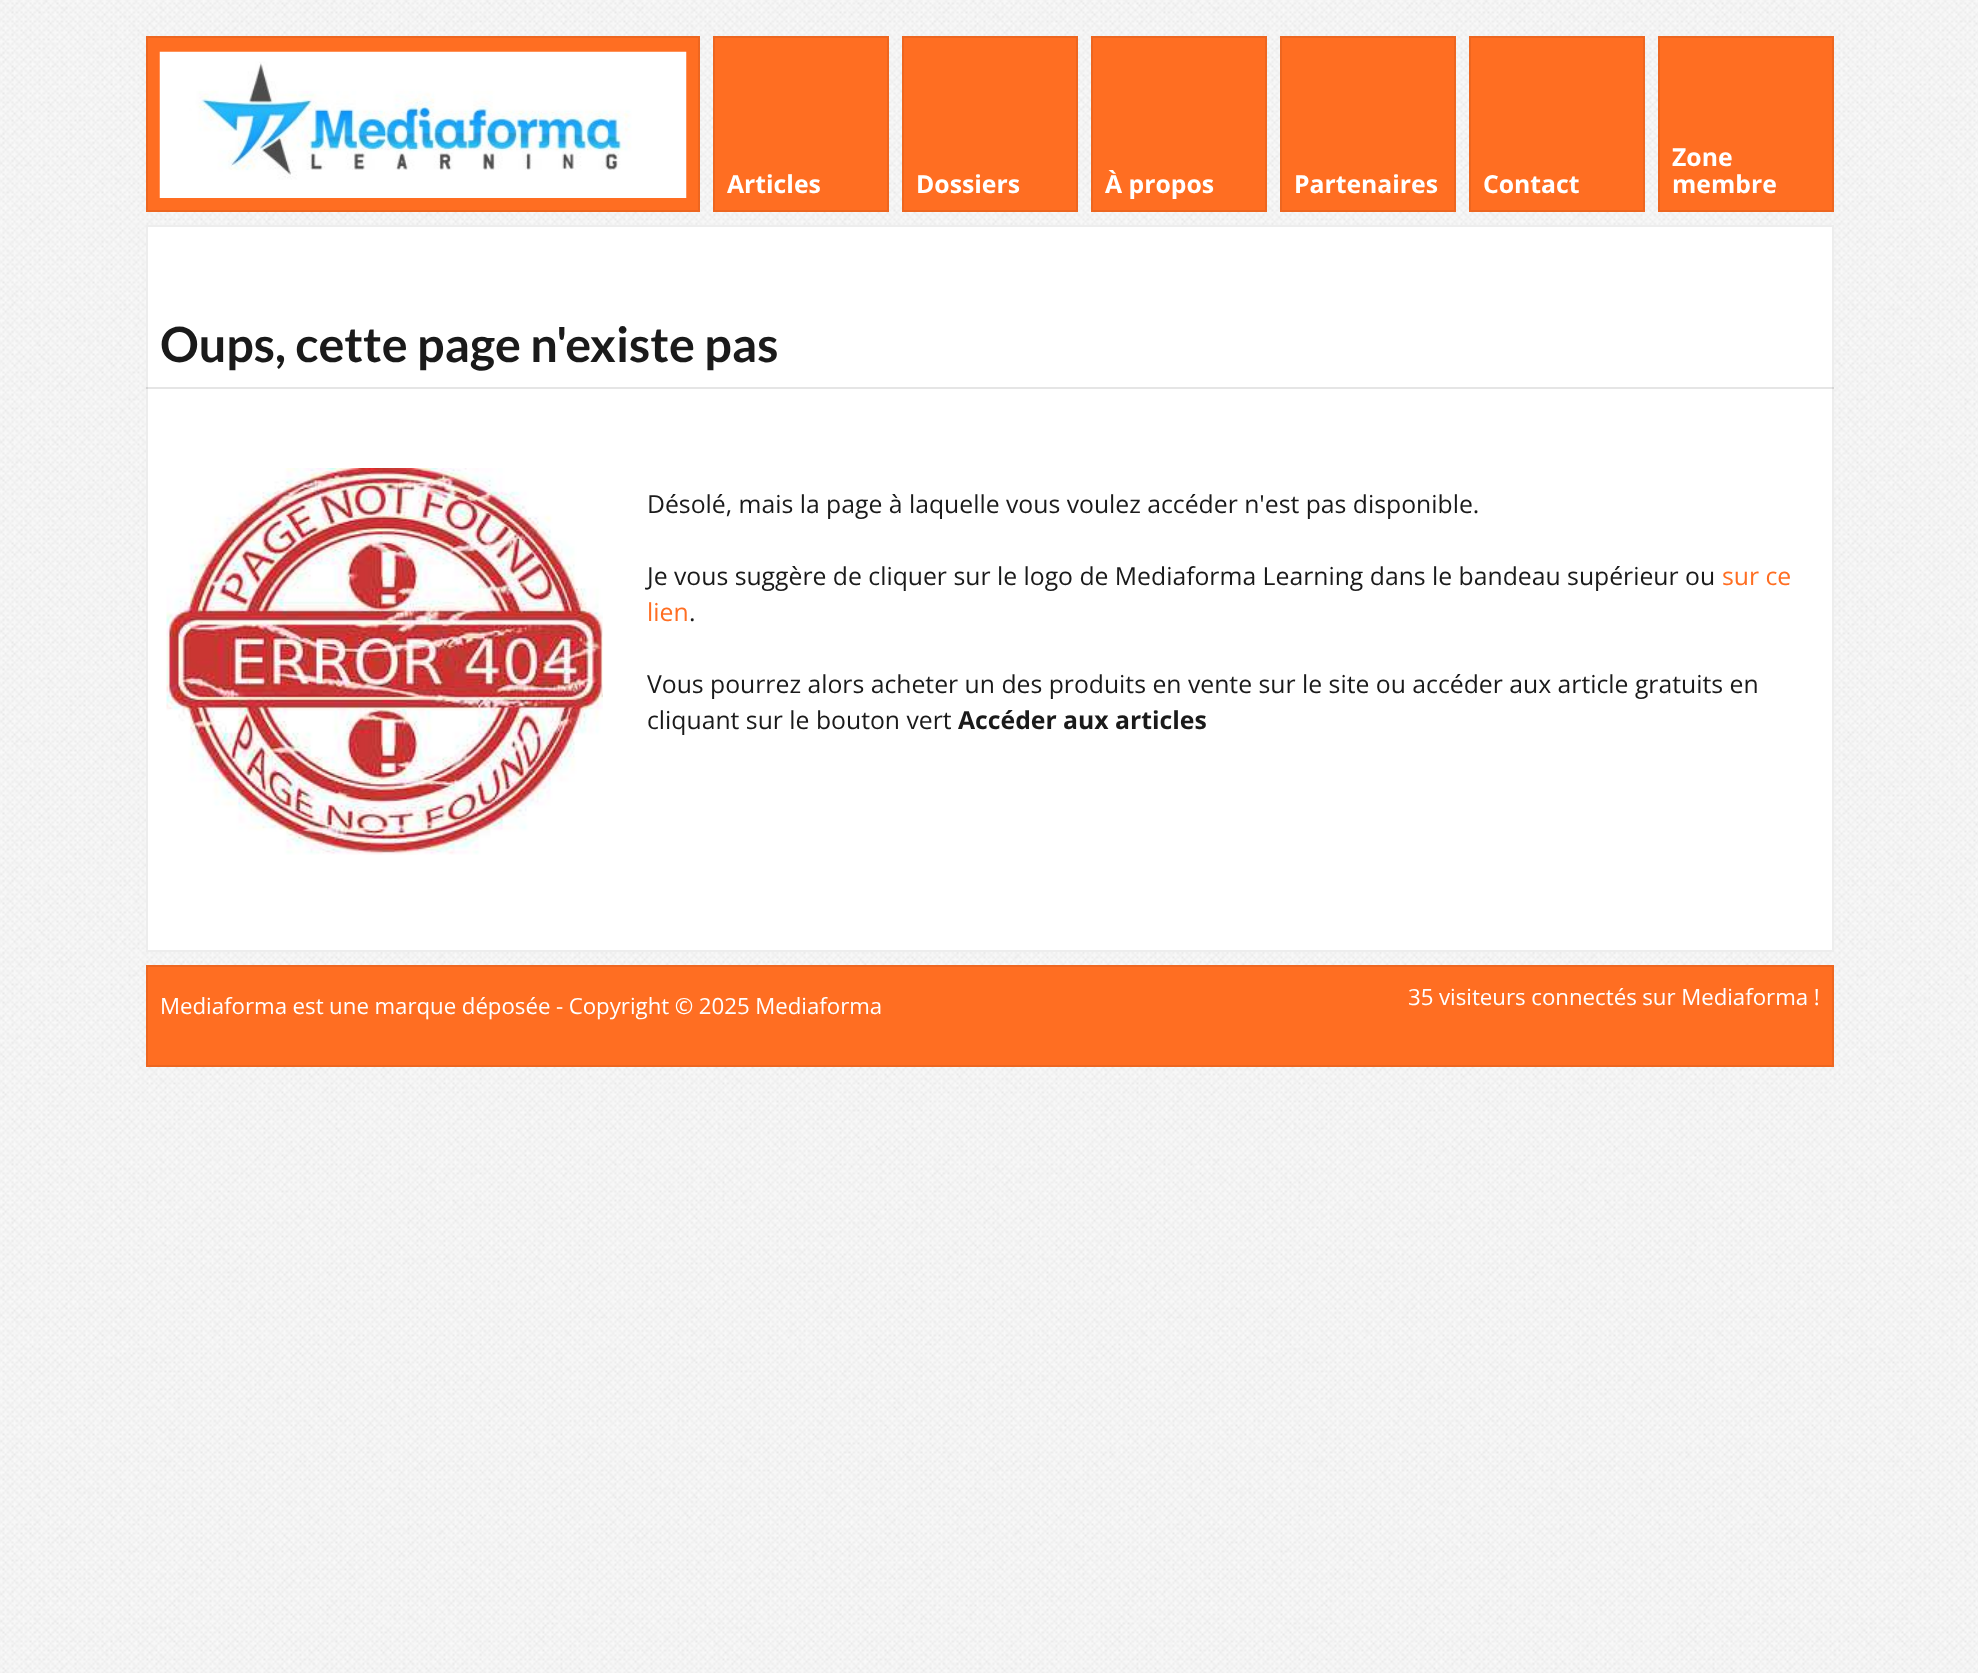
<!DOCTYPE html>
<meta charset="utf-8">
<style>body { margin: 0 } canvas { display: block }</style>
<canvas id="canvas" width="1978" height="1673"></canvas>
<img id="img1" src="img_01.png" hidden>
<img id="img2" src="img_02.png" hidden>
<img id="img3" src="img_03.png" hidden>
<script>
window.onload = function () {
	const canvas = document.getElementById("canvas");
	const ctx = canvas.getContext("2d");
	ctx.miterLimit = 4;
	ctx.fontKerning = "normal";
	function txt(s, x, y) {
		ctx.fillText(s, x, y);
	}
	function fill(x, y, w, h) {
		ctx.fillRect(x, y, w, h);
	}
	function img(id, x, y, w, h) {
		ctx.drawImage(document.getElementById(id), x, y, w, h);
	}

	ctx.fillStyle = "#FFFFFF";
	fill(0, 0, 1978, 1673);
	img("img1", 0, 0, 1978, 1673);
	ctx.fillStyle = "#FF6E22";
	ctx.beginPath();
	ctx.rect(147, 37, 552, 174);
	ctx.fill();
	ctx.strokeStyle = "#ED6620";
	ctx.lineWidth = 2;
	ctx.stroke();
	img("img2", 159, 51, 528, 147);
	ctx.beginPath();
	ctx.rect(714, 37, 174, 174);
	ctx.fill();
	ctx.stroke();
	ctx.beginPath();
	ctx.rect(903, 37, 174, 174);
	ctx.fill();
	ctx.stroke();
	ctx.beginPath();
	ctx.rect(1092, 37, 174, 174);
	ctx.fill();
	ctx.stroke();
	ctx.beginPath();
	ctx.rect(1281, 37, 174, 174);
	ctx.fill();
	ctx.stroke();
	ctx.beginPath();
	ctx.rect(1470, 37, 174, 174);
	ctx.fill();
	ctx.stroke();
	ctx.beginPath();
	ctx.rect(1659, 37, 174, 174);
	ctx.fill();
	ctx.stroke();
	ctx.fillStyle = "#FFFFFF";
	ctx.beginPath();
	ctx.rect(147, 226, 1686, 725);
	ctx.fill();
	ctx.strokeStyle = "#EDEDED";
	ctx.stroke();
	ctx.fillStyle = "rgba(0, 0, 0, 0.1)";
	fill(146, 387, 1688, 2);
	img("img3", 166, 468, 437, 387);
	ctx.fillStyle = "#FF6E22";
	ctx.beginPath();
	ctx.rect(147, 966, 1686, 100);
	ctx.fill();
	ctx.strokeStyle = "#ED6620";
	ctx.stroke();
	ctx.font = "bold 24.75px Open Sans";
	ctx.fillStyle = "#FFFFFF";
	txt("Articles", 727, 193);
	txt("Dossiers", 916, 193);
	txt("À propos", 1105, 193);
	txt("Partenaires", 1294, 193);
	txt("Contact", 1483, 193);
	txt("Zone", 1672, 166);
	txt("membre", 1672, 193);
	ctx.font = "bold 48.5px Lato";
	ctx.fillStyle = "#1A1A1A";
	txt("Oups, cette page n'existe pas", 160, 362);
	ctx.font = "24.75px Open Sans";
	txt("Désolé, mais la page à laquelle vous voulez accéder n'est pas disponible.", 647, 513);
	txt("Je vous suggère de cliquer sur le logo de Mediaforma Learning dans le bandeau supérieur ou", 647, 585);
	ctx.fillStyle = "#FF6E22";
	txt("sur ce", 1722, 585);
	txt("lien", 647, 621);
	ctx.fillStyle = "#1A1A1A";
	txt(".", 689, 621);
	txt("Vous pourrez alors acheter un des produits en vente sur le site ou accéder aux article gratuits en", 647, 693);
	txt("cliquant sur le bouton vert", 647, 729);
	ctx.font = "bold 24.75px Open Sans";
	txt("Accéder aux articles", 958, 729);
	ctx.wordSpacing = "-0.25px";
	ctx.font = "22.25px Open Sans";
	ctx.fillStyle = "#FFFFFF";
	txt("Mediaforma est une marque déposée - Copyright © 2025 Mediaforma", 160, 1014);
	txt("35 visiteurs connectés sur Mediaforma !", 1408, 1005);
};
</script>
